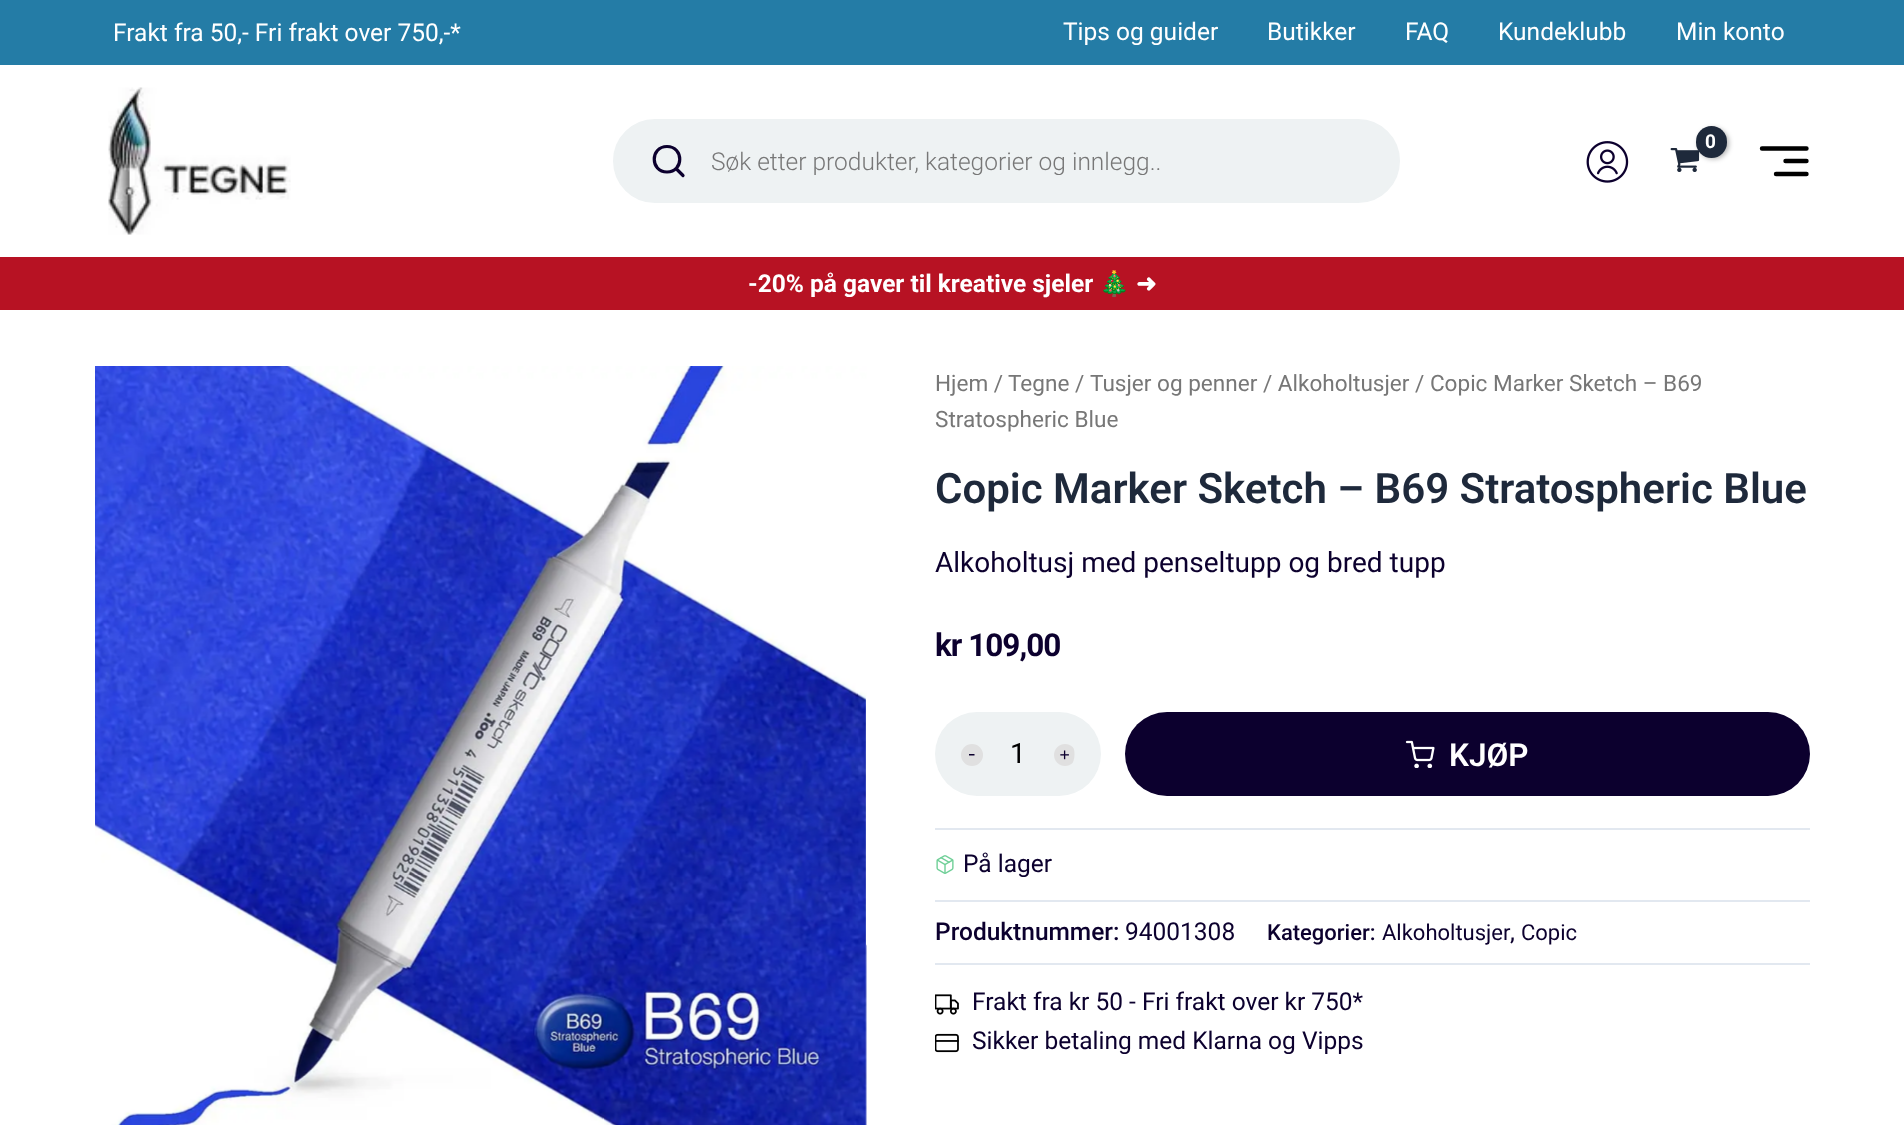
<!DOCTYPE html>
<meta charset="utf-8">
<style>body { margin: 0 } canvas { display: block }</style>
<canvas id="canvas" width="1904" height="1125"></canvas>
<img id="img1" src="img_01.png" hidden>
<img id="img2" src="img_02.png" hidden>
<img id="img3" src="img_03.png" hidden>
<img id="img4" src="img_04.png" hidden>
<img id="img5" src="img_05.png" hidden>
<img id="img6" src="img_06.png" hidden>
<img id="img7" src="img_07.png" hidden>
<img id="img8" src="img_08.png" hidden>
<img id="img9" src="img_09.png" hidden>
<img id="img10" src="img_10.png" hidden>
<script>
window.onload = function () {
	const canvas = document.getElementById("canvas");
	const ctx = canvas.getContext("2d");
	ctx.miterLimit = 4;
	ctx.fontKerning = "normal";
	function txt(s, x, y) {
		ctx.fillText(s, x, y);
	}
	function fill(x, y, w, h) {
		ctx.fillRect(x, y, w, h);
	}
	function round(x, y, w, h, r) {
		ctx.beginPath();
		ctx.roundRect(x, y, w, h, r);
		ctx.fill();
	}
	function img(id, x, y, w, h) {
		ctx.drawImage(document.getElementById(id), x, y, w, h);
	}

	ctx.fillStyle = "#FFFFFF";
	fill(0, 0, 1904, 1125);
	ctx.fillStyle = "#247CA6";
	fill(0, 0, 1904, 65);
	img("img1", 108, 87, 183, 148);
	img("img2", 1586, 141, 43, 42);
	img("img3", 1670, 148, 30, 24);
	ctx.fillStyle = "rgba(0, 0, 0, 0.3)";
	ctx.filter = "blur(2.5px)";
	ctx.beginPath();
	ctx.roundRect(1698, 128, 31, 31, 15.5);
	ctx.fill();
	ctx.filter = "none";
	ctx.fillStyle = "#1E293B";
	round(1696, 126, 31, 32, 15.5);
	ctx.beginPath();
	ctx.moveTo(1762, 148.5);
	ctx.lineTo(1806.5, 148.5);
	ctx.moveTo(1785.5, 161);
	ctx.lineTo(1806.5, 161);
	ctx.moveTo(1776, 174);
	ctx.lineTo(1806.5, 174);
	ctx.strokeStyle = "#000000";
	ctx.lineWidth = 4.4;
	ctx.lineCap = "round";
	ctx.lineJoin = "round";
	ctx.stroke();
	ctx.fillStyle = "#EEF2F3";
	ctx.beginPath();
	ctx.roundRect(614, 120, 785, 82, 41);
	ctx.fill();
	ctx.strokeStyle = "#EEF2F3";
	ctx.lineWidth = 2;
	ctx.lineJoin = "miter";
	ctx.stroke();
	ctx.beginPath();
	ctx.moveTo(667, 172);
	ctx.bezierCurveTo(684, 172, 684, 146.5, 667, 146.5);
	ctx.bezierCurveTo(650, 146.5, 650, 172, 667, 172);
	ctx.closePath();
	ctx.moveTo(683, 175.5);
	ctx.lineTo(676, 168.5);
	ctx.strokeStyle = "#0C002E";
	ctx.lineWidth = 3.2;
	ctx.lineJoin = "round";
	ctx.stroke();
	ctx.fillStyle = "#B71223";
	fill(0, 257, 1904, 53);
	img("img4", 95, 366, 772, 759);
	img("img5", 866, 696, 1, 250);
	ctx.fillStyle = "#EEF2F3";
	round(935, 712, 166, 84, 42);
	ctx.fillStyle = "#E0E0E0";
	ctx.beginPath();
	ctx.arc(972, 755, 11, 0, Math.PI * 2);
	ctx.fill();
	ctx.fillStyle = "#0C002E";
	ctx.beginPath();
	ctx.moveTo(969, 755.5);
	ctx.lineTo(974.5, 755.5);
	ctx.lineTo(974.5, 754);
	ctx.lineTo(969, 754);
	ctx.closePath();
	ctx.fill();
	img("img6", 1054, 744, 21, 22);
	round(1125, 712, 685, 84, 42);
	img("img7", 1405, 740, 30, 28);
	ctx.fillStyle = "#E2E8F0";
	fill(935, 828, 875, 2);
	img("img8", 936, 855, 18, 19);
	fill(935, 900, 875, 2);
	fill(935, 963, 875, 2);
	img("img9", 935, 994, 24, 21);
	img("img10", 935, 1033, 24, 20);
	ctx.font = "24.5px Roboto";
	ctx.fillStyle = "#FFFFFF";
	txt("Frakt fra 50,- Fri frakt over 750,-*", 113, 41);
	txt("Tips og guider", 1063, 40);
	txt("Butikker", 1267, 40);
	txt("FAQ", 1405, 40);
	txt("Kundeklubb", 1498, 40);
	txt("Min konto", 1676, 40);
	ctx.letterSpacing = "-1px";
	ctx.font = "bold 19px Roboto";
	txt("0", 1705, 148);
	ctx.save();
	ctx.beginPath();
	ctx.rect(711, 147, 645, 28);
	ctx.clip();
	ctx.letterSpacing = "0px";
	ctx.font = "300 24.5px Roboto";
	ctx.fillStyle = "#777777";
	txt("Søk etter produkter, kategorier og innlegg..", 711, 170);
	ctx.restore();
	ctx.letterSpacing = "0px";
	ctx.font = "bold 24.5px Roboto";
	txt("-20% på gaver til kreative sjeler", 748, 292);
	ctx.font = "bold 24.5px Noto Color Emoji";
	txt("🎄", 1099, 292);
	ctx.font = "bold 24.5px DejaVu Sans";
	txt("➜", 1136, 292);
	ctx.font = "22.55px Roboto";
	ctx.fillStyle = "#777777";
	txt("Hjem /", 935, 391);
	txt("Tegne /", 1008, 391);
	txt("Tusjer og penner / Alkoholtusjer / Copic Marker Sketch – B69", 1090, 391);
	txt("Stratospheric Blue", 935, 427);
	ctx.font = "600 42px Roboto";
	ctx.fillStyle = "#1E293B";
	txt("Copic Marker Sketch – B69 Stratospheric Blue", 935, 503);
	ctx.font = "28px Roboto";
	ctx.fillStyle = "#0C002E";
	txt("Alkoholtusj med penseltupp og bred tupp", 935, 572);
	ctx.letterSpacing = "-1px";
	ctx.font = "bold 31.5px Roboto";
	txt("kr 109,00", 935, 656);
	ctx.letterSpacing = "0px";
	ctx.font = "28px Roboto";
	ctx.fillStyle = "#000000";
	txt("1", 1010, 763);
	ctx.font = "600 31.5px Roboto";
	ctx.fillStyle = "#FFFFFF";
	txt("KJØP", 1449, 766);
	ctx.font = "24.5px Roboto";
	ctx.fillStyle = "#0C002E";
	txt("På lager", 963, 872);
	ctx.font = "500 24.5px Roboto";
	txt("Produktnummer:", 935, 940);
	ctx.font = "24.5px Roboto";
	txt("94001308", 1125, 940);
	ctx.font = "500 22px Roboto";
	txt("Kategorier:", 1267, 940);
	ctx.font = "22px Roboto";
	txt("Alkoholtusjer", 1382, 940);
	ctx.font = "500 22px Roboto";
	txt(",", 1510, 940);
	ctx.font = "22px Roboto";
	txt("Copic", 1521, 940);
	ctx.font = "24.5px Roboto";
	txt("Frakt fra kr 50 - Fri frakt over kr 750*", 972, 1010);
	txt("Sikker betaling med Klarna og Vipps", 972, 1049);
};
</script>
